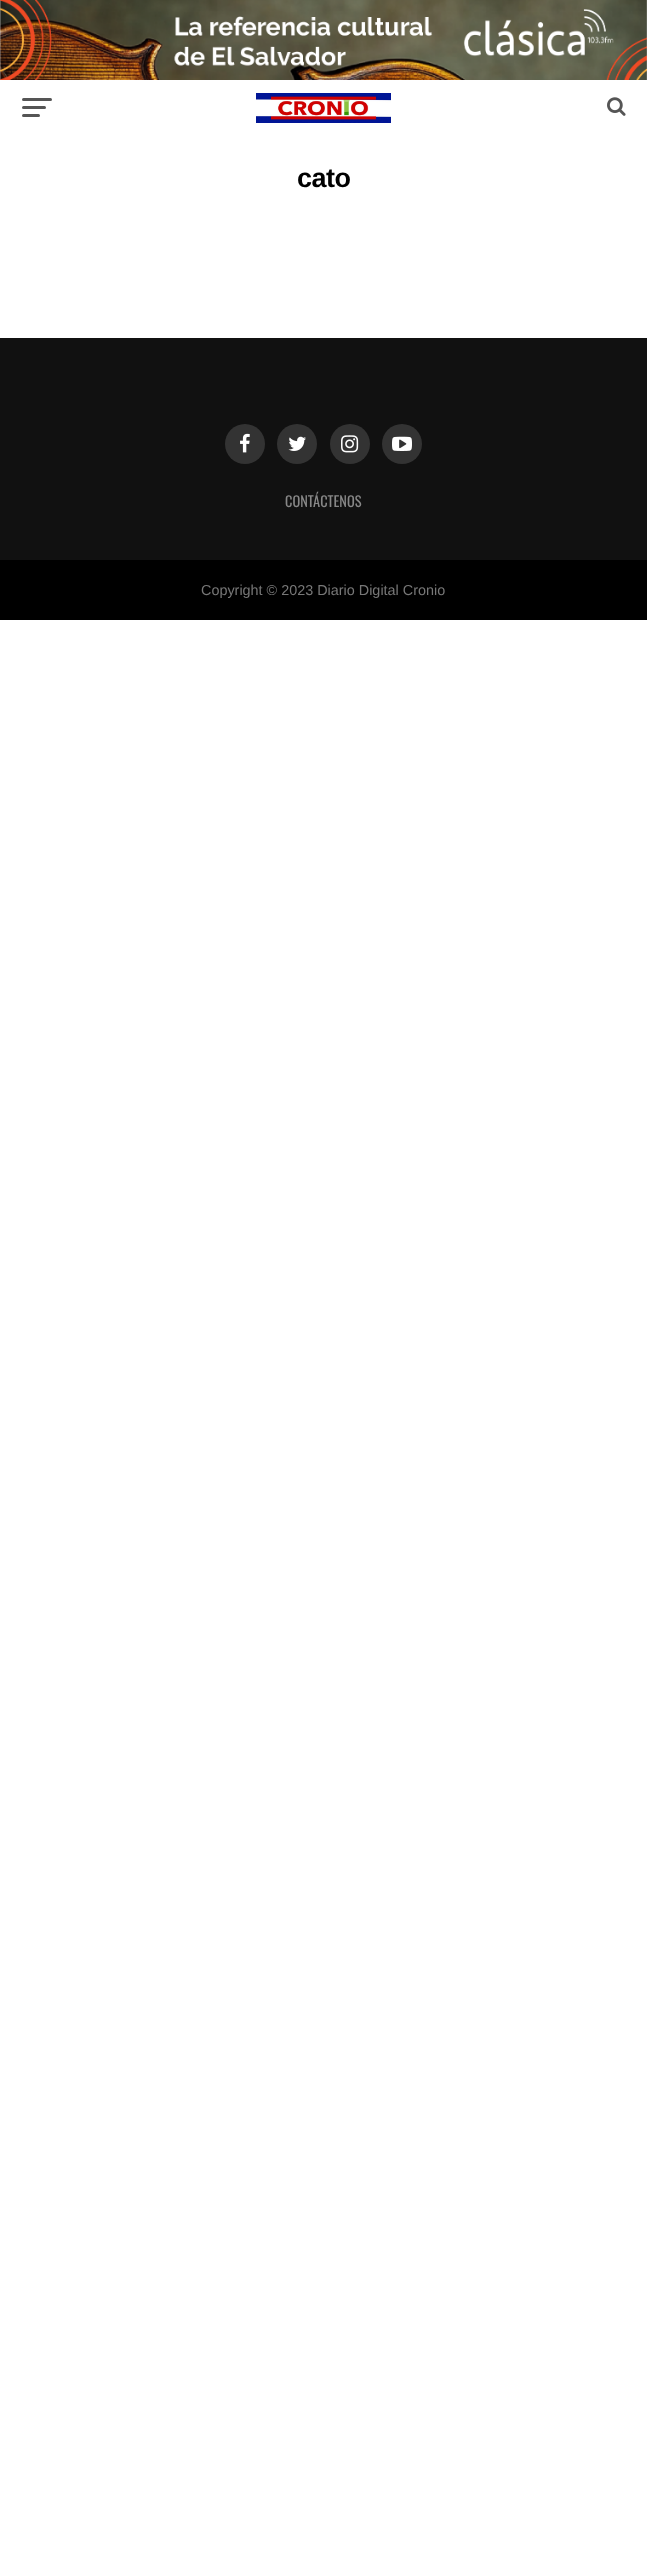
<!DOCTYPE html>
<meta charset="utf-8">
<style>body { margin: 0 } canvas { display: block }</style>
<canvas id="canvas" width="647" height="2569"></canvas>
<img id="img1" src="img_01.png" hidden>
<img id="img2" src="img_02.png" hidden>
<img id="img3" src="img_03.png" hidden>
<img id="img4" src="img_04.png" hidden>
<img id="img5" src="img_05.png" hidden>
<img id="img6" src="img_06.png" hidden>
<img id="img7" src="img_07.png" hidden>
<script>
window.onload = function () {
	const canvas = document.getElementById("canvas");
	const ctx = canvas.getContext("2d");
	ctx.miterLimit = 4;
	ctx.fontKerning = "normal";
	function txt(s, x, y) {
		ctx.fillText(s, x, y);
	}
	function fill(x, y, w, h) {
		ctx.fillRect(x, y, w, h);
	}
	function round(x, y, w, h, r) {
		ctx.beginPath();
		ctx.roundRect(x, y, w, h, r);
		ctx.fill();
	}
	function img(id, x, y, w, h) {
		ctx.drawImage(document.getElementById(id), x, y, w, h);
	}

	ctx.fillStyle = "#FFFFFF";
	fill(0, 0, 647, 2569);
	img("img1", 0, 0, 647, 80);
	ctx.fillStyle = "#555555";
	round(22, 98, 30, 3, 1.5);
	round(22, 106, 24, 3, 1.5);
	round(22, 114, 18, 3, 1.5);
	img("img2", 256, 93, 135, 30);
	img("img3", 607, 97, 19, 19);
	ctx.fillStyle = "#111111";
	fill(0, 338, 647, 222);
	ctx.fillStyle = "#333333";
	ctx.beginPath();
	ctx.arc(245, 444, 20, 0, Math.PI * 2);
	ctx.fill();
	img("img4", 240, 433, 10, 20);
	ctx.beginPath();
	ctx.arc(297, 444, 20, 0, Math.PI * 2);
	ctx.fill();
	img("img5", 288, 436, 18, 15);
	ctx.beginPath();
	ctx.arc(350, 444, 20, 0, Math.PI * 2);
	ctx.fill();
	img("img6", 341, 435, 18, 18);
	ctx.beginPath();
	ctx.arc(402, 444, 20, 0, Math.PI * 2);
	ctx.fill();
	img("img7", 392, 436, 20, 15);
	ctx.fillStyle = "#000000";
	fill(0, 560, 647, 60);
	ctx.letterSpacing = "-0.5px";
	ctx.font = "bold 27px Liberation Sans";
	txt("cato", 297, 187);
	ctx.letterSpacing = "0px";
	ctx.font = "14.4px Oswald";
	ctx.fillStyle = "#888888";
	txt("CONTÁCTENOS", 285, 507);
	ctx.font = "14.4px Liberation Sans";
	ctx.fillStyle = "#777777";
	txt("Copyright © 2023 Diario Digital Cronio", 201, 595);
};
</script>
